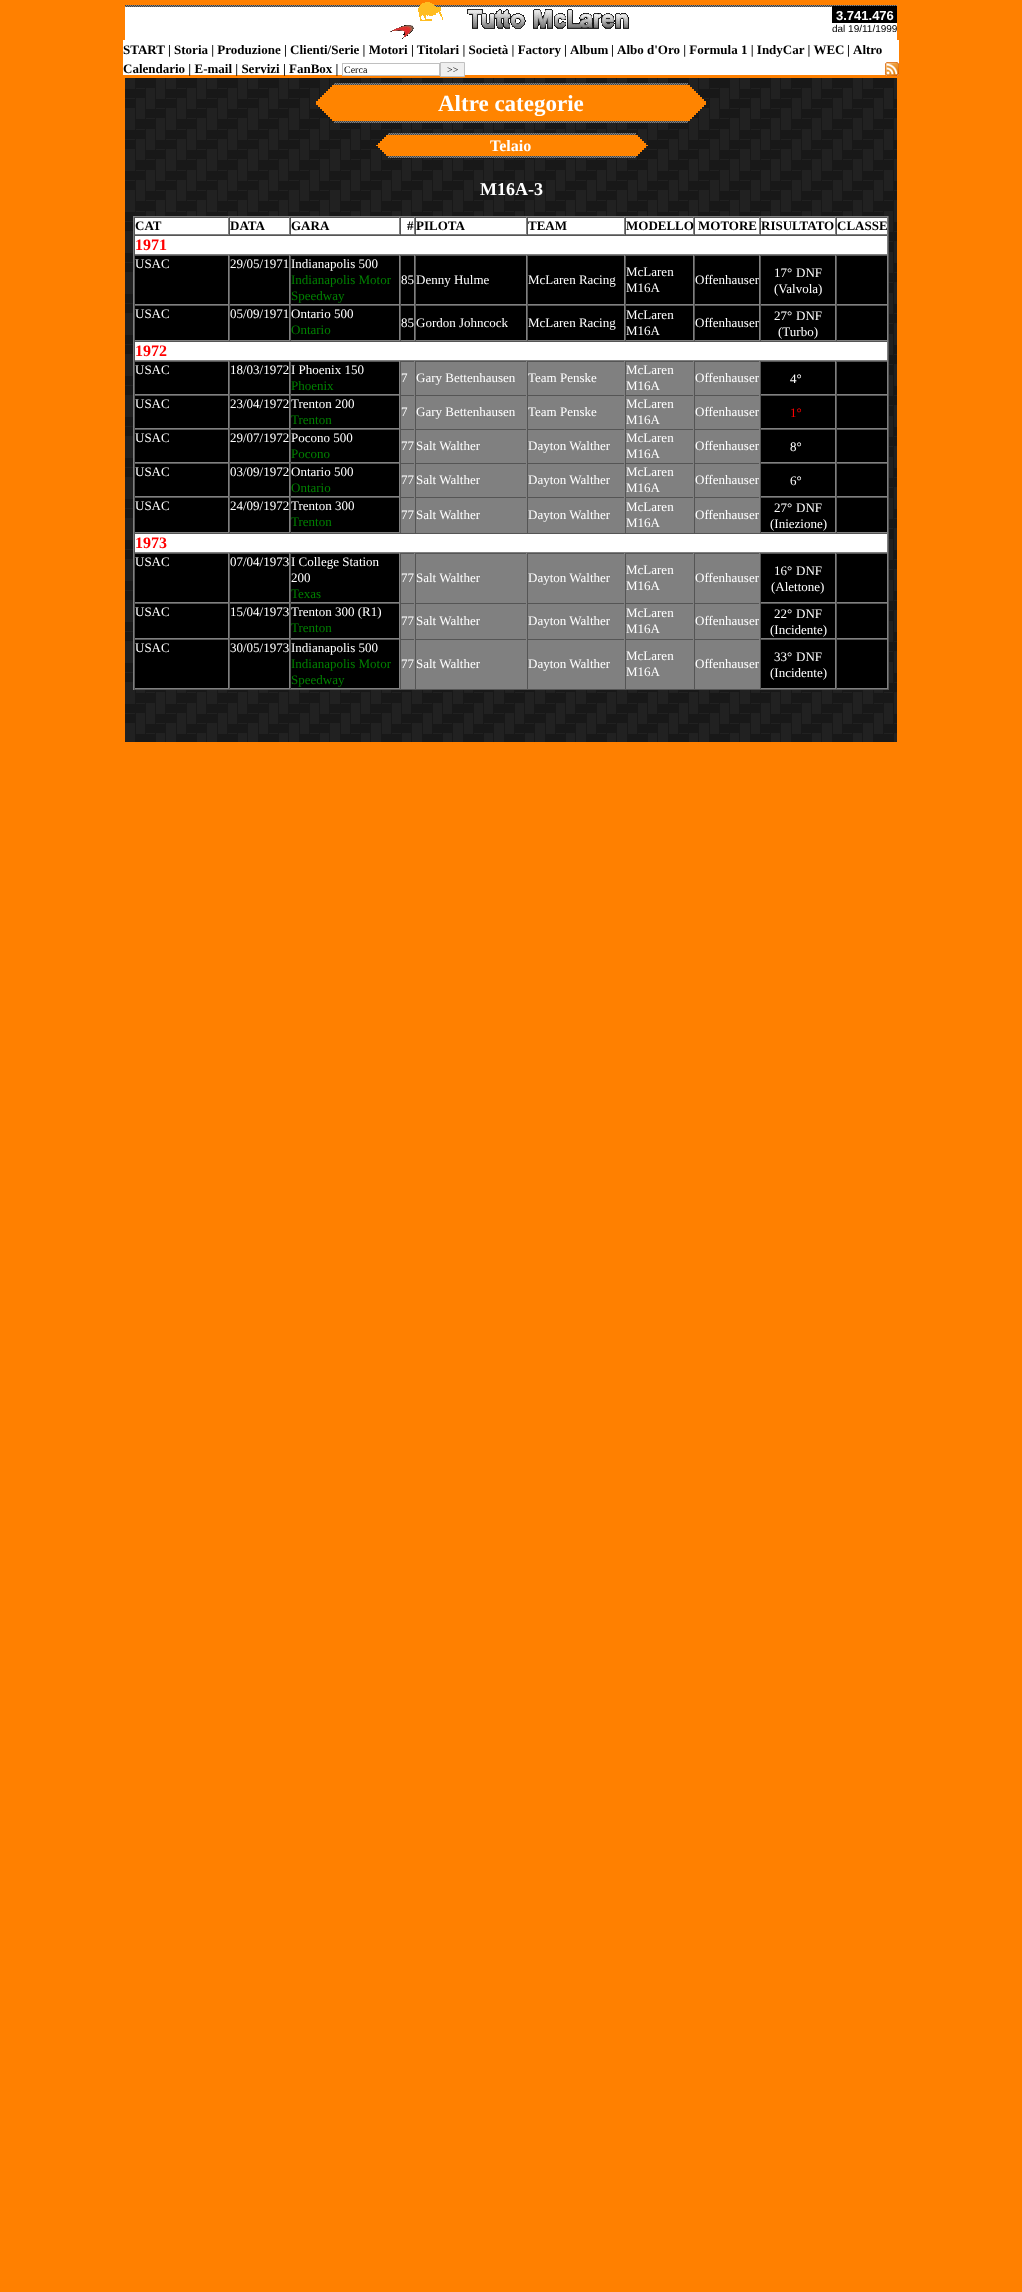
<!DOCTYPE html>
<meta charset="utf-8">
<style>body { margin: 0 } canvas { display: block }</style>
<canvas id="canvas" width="1022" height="2292"></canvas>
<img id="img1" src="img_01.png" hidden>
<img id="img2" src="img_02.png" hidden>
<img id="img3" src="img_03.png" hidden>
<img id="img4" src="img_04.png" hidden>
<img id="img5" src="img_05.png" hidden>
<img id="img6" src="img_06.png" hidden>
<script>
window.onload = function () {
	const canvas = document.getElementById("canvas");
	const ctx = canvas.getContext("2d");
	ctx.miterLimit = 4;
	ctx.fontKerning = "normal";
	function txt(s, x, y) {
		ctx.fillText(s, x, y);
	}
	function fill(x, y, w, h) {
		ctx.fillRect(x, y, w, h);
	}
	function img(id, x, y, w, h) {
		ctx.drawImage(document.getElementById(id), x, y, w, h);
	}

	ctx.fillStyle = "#FF8000";
	fill(0, 0, 1022, 2292);
	img("img1", 125, 5, 772, 35);
	img("img2", 390, 2, 239, 37);
	ctx.fillStyle = "#000000";
	fill(832, 6, 65, 17);
	ctx.fillStyle = "#FFFFFF";
	fill(123, 40, 776, 35);
	ctx.strokeStyle = "#C0C0C0";
	ctx.strokeRect(342.5, 63.5, 97, 12);
	ctx.fillStyle = "#EFEFEF";
	ctx.beginPath();
	ctx.rect(440.5, 62.5, 24, 14);
	ctx.fill();
	ctx.stroke();
	img("img3", 885, 62, 14, 14);
	img("img4", 125, 78, 772, 664);
	img("img5", 316, 83, 390, 40);
	img("img6", 376, 133, 272, 25);
	ctx.fillStyle = "#808080";
	fill(133, 216, 756, 1);
	ctx.fillStyle = "#555555";
	fill(888, 216, 1, 474);
	fill(133, 689, 756, 1);
	ctx.fillStyle = "#808080";
	fill(133, 216, 1, 474);
	ctx.fillStyle = "#FFFFFF";
	fill(135, 218, 93, 16);
	ctx.fillStyle = "#555555";
	fill(134, 217, 754, 1);
	ctx.fillStyle = "#808080";
	fill(228, 217, 1, 18);
	fill(134, 234, 95, 1);
	ctx.fillStyle = "#555555";
	fill(134, 217, 1, 18);
	ctx.fillStyle = "#FFFFFF";
	fill(230, 218, 59, 16);
	ctx.fillStyle = "#808080";
	fill(289, 217, 1, 18);
	fill(229, 234, 61, 1);
	ctx.fillStyle = "#555555";
	fill(229, 217, 1, 18);
	ctx.fillStyle = "#FFFFFF";
	fill(291, 218, 108, 16);
	ctx.fillStyle = "#808080";
	fill(399, 217, 1, 18);
	fill(290, 234, 110, 1);
	ctx.fillStyle = "#555555";
	fill(290, 217, 1, 18);
	ctx.fillStyle = "#FFFFFF";
	fill(401, 218, 13, 16);
	ctx.fillStyle = "#808080";
	fill(414, 217, 1, 18);
	fill(400, 234, 15, 1);
	ctx.fillStyle = "#555555";
	fill(400, 217, 1, 18);
	ctx.fillStyle = "#FFFFFF";
	fill(416, 218, 110, 16);
	ctx.fillStyle = "#808080";
	fill(526, 217, 1, 18);
	fill(415, 234, 112, 1);
	ctx.fillStyle = "#555555";
	fill(415, 217, 1, 18);
	ctx.fillStyle = "#FFFFFF";
	fill(528, 218, 96, 16);
	ctx.fillStyle = "#808080";
	fill(624, 217, 1, 18);
	fill(527, 234, 98, 1);
	ctx.fillStyle = "#555555";
	fill(527, 217, 1, 18);
	ctx.fillStyle = "#FFFFFF";
	fill(626, 218, 67, 16);
	ctx.fillStyle = "#808080";
	fill(693, 217, 1, 18);
	fill(625, 234, 69, 1);
	ctx.fillStyle = "#555555";
	fill(625, 217, 1, 18);
	ctx.fillStyle = "#FFFFFF";
	fill(695, 218, 64, 16);
	ctx.fillStyle = "#808080";
	fill(759, 217, 1, 18);
	fill(694, 234, 66, 1);
	ctx.fillStyle = "#555555";
	fill(694, 217, 1, 18);
	ctx.fillStyle = "#FFFFFF";
	fill(761, 218, 74, 16);
	ctx.fillStyle = "#808080";
	fill(835, 217, 1, 18);
	fill(760, 234, 76, 1);
	ctx.fillStyle = "#555555";
	fill(760, 217, 1, 18);
	ctx.fillStyle = "#FFFFFF";
	fill(837, 218, 50, 16);
	ctx.fillStyle = "#808080";
	fill(887, 217, 1, 18);
	fill(836, 234, 52, 1);
	ctx.fillStyle = "#555555";
	fill(836, 217, 1, 18);
	ctx.fillStyle = "#FFFFFF";
	fill(135, 236, 752, 18);
	ctx.fillStyle = "#555555";
	fill(134, 235, 754, 1);
	ctx.fillStyle = "#808080";
	fill(887, 235, 1, 20);
	fill(134, 254, 754, 1);
	ctx.fillStyle = "#555555";
	fill(134, 235, 1, 20);
	ctx.fillStyle = "#000000";
	fill(135, 256, 93, 48);
	ctx.fillStyle = "#555555";
	fill(134, 255, 754, 1);
	ctx.fillStyle = "#808080";
	fill(228, 255, 1, 50);
	fill(134, 304, 95, 1);
	ctx.fillStyle = "#555555";
	fill(134, 255, 1, 50);
	ctx.fillStyle = "#000000";
	fill(230, 256, 59, 48);
	ctx.fillStyle = "#808080";
	fill(289, 255, 1, 50);
	fill(229, 304, 61, 1);
	ctx.fillStyle = "#555555";
	fill(229, 255, 1, 50);
	ctx.fillStyle = "#000000";
	fill(291, 256, 108, 48);
	ctx.fillStyle = "#808080";
	fill(399, 255, 1, 50);
	fill(290, 304, 110, 1);
	ctx.fillStyle = "#555555";
	fill(290, 255, 1, 50);
	ctx.fillStyle = "#000000";
	fill(401, 256, 13, 48);
	ctx.fillStyle = "#808080";
	fill(414, 255, 1, 50);
	fill(400, 304, 15, 1);
	ctx.fillStyle = "#555555";
	fill(400, 255, 1, 50);
	ctx.fillStyle = "#000000";
	fill(416, 256, 110, 48);
	ctx.fillStyle = "#808080";
	fill(526, 255, 1, 50);
	fill(415, 304, 112, 1);
	ctx.fillStyle = "#555555";
	fill(415, 255, 1, 50);
	ctx.fillStyle = "#000000";
	fill(528, 256, 96, 48);
	ctx.fillStyle = "#808080";
	fill(624, 255, 1, 50);
	fill(527, 304, 98, 1);
	ctx.fillStyle = "#555555";
	fill(527, 255, 1, 50);
	ctx.fillStyle = "#000000";
	fill(626, 256, 67, 48);
	ctx.fillStyle = "#808080";
	fill(693, 255, 1, 50);
	fill(625, 304, 69, 1);
	ctx.fillStyle = "#555555";
	fill(625, 255, 1, 50);
	ctx.fillStyle = "#000000";
	fill(695, 256, 64, 48);
	ctx.fillStyle = "#808080";
	fill(759, 255, 1, 50);
	fill(694, 304, 66, 1);
	ctx.fillStyle = "#555555";
	fill(694, 255, 1, 50);
	ctx.fillStyle = "#000000";
	fill(761, 256, 74, 48);
	ctx.fillStyle = "#808080";
	fill(835, 255, 1, 50);
	fill(760, 304, 76, 1);
	ctx.fillStyle = "#555555";
	fill(760, 255, 1, 50);
	ctx.fillStyle = "#000000";
	fill(837, 256, 50, 48);
	ctx.fillStyle = "#808080";
	fill(887, 255, 1, 50);
	fill(836, 304, 52, 1);
	ctx.fillStyle = "#555555";
	fill(836, 255, 1, 50);
	ctx.fillStyle = "#000000";
	fill(135, 306, 93, 34);
	ctx.fillStyle = "#555555";
	fill(134, 305, 754, 1);
	ctx.fillStyle = "#808080";
	fill(228, 305, 1, 36);
	fill(134, 340, 95, 1);
	ctx.fillStyle = "#555555";
	fill(134, 305, 1, 36);
	ctx.fillStyle = "#000000";
	fill(230, 306, 59, 34);
	ctx.fillStyle = "#808080";
	fill(289, 305, 1, 36);
	fill(229, 340, 61, 1);
	ctx.fillStyle = "#555555";
	fill(229, 305, 1, 36);
	ctx.fillStyle = "#000000";
	fill(291, 306, 108, 34);
	ctx.fillStyle = "#808080";
	fill(399, 305, 1, 36);
	fill(290, 340, 110, 1);
	ctx.fillStyle = "#555555";
	fill(290, 305, 1, 36);
	ctx.fillStyle = "#000000";
	fill(401, 306, 13, 34);
	ctx.fillStyle = "#808080";
	fill(414, 305, 1, 36);
	fill(400, 340, 15, 1);
	ctx.fillStyle = "#555555";
	fill(400, 305, 1, 36);
	ctx.fillStyle = "#000000";
	fill(416, 306, 110, 34);
	ctx.fillStyle = "#808080";
	fill(526, 305, 1, 36);
	fill(415, 340, 112, 1);
	ctx.fillStyle = "#555555";
	fill(415, 305, 1, 36);
	ctx.fillStyle = "#000000";
	fill(528, 306, 96, 34);
	ctx.fillStyle = "#808080";
	fill(624, 305, 1, 36);
	fill(527, 340, 98, 1);
	ctx.fillStyle = "#555555";
	fill(527, 305, 1, 36);
	ctx.fillStyle = "#000000";
	fill(626, 306, 67, 34);
	ctx.fillStyle = "#808080";
	fill(693, 305, 1, 36);
	fill(625, 340, 69, 1);
	ctx.fillStyle = "#555555";
	fill(625, 305, 1, 36);
	ctx.fillStyle = "#000000";
	fill(695, 306, 64, 34);
	ctx.fillStyle = "#808080";
	fill(759, 305, 1, 36);
	fill(694, 340, 66, 1);
	ctx.fillStyle = "#555555";
	fill(694, 305, 1, 36);
	ctx.fillStyle = "#000000";
	fill(761, 306, 74, 34);
	ctx.fillStyle = "#808080";
	fill(835, 305, 1, 36);
	fill(760, 340, 76, 1);
	ctx.fillStyle = "#555555";
	fill(760, 305, 1, 36);
	ctx.fillStyle = "#000000";
	fill(837, 306, 50, 34);
	ctx.fillStyle = "#808080";
	fill(887, 305, 1, 36);
	fill(836, 340, 52, 1);
	ctx.fillStyle = "#555555";
	fill(836, 305, 1, 36);
	ctx.fillStyle = "#FFFFFF";
	fill(135, 342, 752, 18);
	ctx.fillStyle = "#555555";
	fill(134, 341, 754, 1);
	ctx.fillStyle = "#808080";
	fill(887, 341, 1, 20);
	fill(134, 360, 754, 1);
	ctx.fillStyle = "#555555";
	fill(134, 341, 1, 20);
	ctx.fillStyle = "#000000";
	fill(135, 362, 93, 32);
	ctx.fillStyle = "#555555";
	fill(134, 361, 754, 1);
	ctx.fillStyle = "#808080";
	fill(228, 361, 1, 34);
	fill(134, 394, 95, 1);
	ctx.fillStyle = "#555555";
	fill(134, 361, 1, 34);
	ctx.fillStyle = "#000000";
	fill(230, 362, 59, 32);
	ctx.fillStyle = "#808080";
	fill(289, 361, 1, 34);
	fill(229, 394, 61, 1);
	ctx.fillStyle = "#555555";
	fill(229, 361, 1, 34);
	ctx.fillStyle = "#000000";
	fill(291, 362, 108, 32);
	ctx.fillStyle = "#808080";
	fill(399, 361, 1, 34);
	fill(290, 394, 110, 1);
	ctx.fillStyle = "#555555";
	fill(290, 361, 1, 34);
	ctx.fillStyle = "#808080";
	fill(401, 362, 13, 33);
	fill(414, 361, 1, 34);
	ctx.fillStyle = "#555555";
	fill(400, 361, 1, 34);
	ctx.fillStyle = "#808080";
	fill(416, 362, 110, 33);
	fill(526, 361, 1, 34);
	ctx.fillStyle = "#555555";
	fill(415, 361, 1, 34);
	ctx.fillStyle = "#808080";
	fill(528, 362, 96, 33);
	fill(624, 361, 1, 34);
	ctx.fillStyle = "#555555";
	fill(527, 361, 1, 34);
	ctx.fillStyle = "#808080";
	fill(626, 362, 67, 33);
	fill(693, 361, 1, 34);
	ctx.fillStyle = "#555555";
	fill(625, 361, 1, 34);
	ctx.fillStyle = "#808080";
	fill(695, 362, 64, 33);
	fill(759, 361, 1, 34);
	ctx.fillStyle = "#555555";
	fill(694, 361, 1, 34);
	ctx.fillStyle = "#000000";
	fill(761, 362, 74, 32);
	ctx.fillStyle = "#808080";
	fill(835, 361, 1, 34);
	fill(760, 394, 76, 1);
	ctx.fillStyle = "#555555";
	fill(760, 361, 1, 34);
	ctx.fillStyle = "#000000";
	fill(837, 362, 50, 32);
	ctx.fillStyle = "#808080";
	fill(887, 361, 1, 34);
	fill(836, 394, 52, 1);
	ctx.fillStyle = "#555555";
	fill(836, 361, 1, 34);
	ctx.fillStyle = "#000000";
	fill(135, 396, 93, 32);
	ctx.fillStyle = "#555555";
	fill(134, 395, 754, 1);
	ctx.fillStyle = "#808080";
	fill(228, 395, 1, 34);
	fill(134, 428, 95, 1);
	ctx.fillStyle = "#555555";
	fill(134, 395, 1, 34);
	ctx.fillStyle = "#000000";
	fill(230, 396, 59, 32);
	ctx.fillStyle = "#808080";
	fill(289, 395, 1, 34);
	fill(229, 428, 61, 1);
	ctx.fillStyle = "#555555";
	fill(229, 395, 1, 34);
	ctx.fillStyle = "#000000";
	fill(291, 396, 108, 32);
	ctx.fillStyle = "#808080";
	fill(399, 395, 1, 34);
	fill(290, 428, 110, 1);
	ctx.fillStyle = "#555555";
	fill(290, 395, 1, 34);
	ctx.fillStyle = "#808080";
	fill(401, 396, 13, 33);
	fill(414, 395, 1, 34);
	ctx.fillStyle = "#555555";
	fill(400, 395, 1, 34);
	ctx.fillStyle = "#808080";
	fill(416, 396, 110, 33);
	fill(526, 395, 1, 34);
	ctx.fillStyle = "#555555";
	fill(415, 395, 1, 34);
	ctx.fillStyle = "#808080";
	fill(528, 396, 96, 33);
	fill(624, 395, 1, 34);
	ctx.fillStyle = "#555555";
	fill(527, 395, 1, 34);
	ctx.fillStyle = "#808080";
	fill(626, 396, 67, 33);
	fill(693, 395, 1, 34);
	ctx.fillStyle = "#555555";
	fill(625, 395, 1, 34);
	ctx.fillStyle = "#808080";
	fill(695, 396, 64, 33);
	fill(759, 395, 1, 34);
	ctx.fillStyle = "#555555";
	fill(694, 395, 1, 34);
	ctx.fillStyle = "#000000";
	fill(761, 396, 74, 32);
	ctx.fillStyle = "#808080";
	fill(835, 395, 1, 34);
	fill(760, 428, 76, 1);
	ctx.fillStyle = "#555555";
	fill(760, 395, 1, 34);
	ctx.fillStyle = "#000000";
	fill(837, 396, 50, 32);
	ctx.fillStyle = "#808080";
	fill(887, 395, 1, 34);
	fill(836, 428, 52, 1);
	ctx.fillStyle = "#555555";
	fill(836, 395, 1, 34);
	ctx.fillStyle = "#000000";
	fill(135, 430, 93, 32);
	ctx.fillStyle = "#555555";
	fill(134, 429, 754, 1);
	ctx.fillStyle = "#808080";
	fill(228, 429, 1, 34);
	fill(134, 462, 95, 1);
	ctx.fillStyle = "#555555";
	fill(134, 429, 1, 34);
	ctx.fillStyle = "#000000";
	fill(230, 430, 59, 32);
	ctx.fillStyle = "#808080";
	fill(289, 429, 1, 34);
	fill(229, 462, 61, 1);
	ctx.fillStyle = "#555555";
	fill(229, 429, 1, 34);
	ctx.fillStyle = "#000000";
	fill(291, 430, 108, 32);
	ctx.fillStyle = "#808080";
	fill(399, 429, 1, 34);
	fill(290, 462, 110, 1);
	ctx.fillStyle = "#555555";
	fill(290, 429, 1, 34);
	ctx.fillStyle = "#808080";
	fill(401, 430, 13, 33);
	fill(414, 429, 1, 34);
	ctx.fillStyle = "#555555";
	fill(400, 429, 1, 34);
	ctx.fillStyle = "#808080";
	fill(416, 430, 110, 33);
	fill(526, 429, 1, 34);
	ctx.fillStyle = "#555555";
	fill(415, 429, 1, 34);
	ctx.fillStyle = "#808080";
	fill(528, 430, 96, 33);
	fill(624, 429, 1, 34);
	ctx.fillStyle = "#555555";
	fill(527, 429, 1, 34);
	ctx.fillStyle = "#808080";
	fill(626, 430, 67, 33);
	fill(693, 429, 1, 34);
	ctx.fillStyle = "#555555";
	fill(625, 429, 1, 34);
	ctx.fillStyle = "#808080";
	fill(695, 430, 64, 33);
	fill(759, 429, 1, 34);
	ctx.fillStyle = "#555555";
	fill(694, 429, 1, 34);
	ctx.fillStyle = "#000000";
	fill(761, 430, 74, 32);
	ctx.fillStyle = "#808080";
	fill(835, 429, 1, 34);
	fill(760, 462, 76, 1);
	ctx.fillStyle = "#555555";
	fill(760, 429, 1, 34);
	ctx.fillStyle = "#000000";
	fill(837, 430, 50, 32);
	ctx.fillStyle = "#808080";
	fill(887, 429, 1, 34);
	fill(836, 462, 52, 1);
	ctx.fillStyle = "#555555";
	fill(836, 429, 1, 34);
	ctx.fillStyle = "#000000";
	fill(135, 464, 93, 32);
	ctx.fillStyle = "#555555";
	fill(134, 463, 754, 1);
	ctx.fillStyle = "#808080";
	fill(228, 463, 1, 34);
	fill(134, 496, 95, 1);
	ctx.fillStyle = "#555555";
	fill(134, 463, 1, 34);
	ctx.fillStyle = "#000000";
	fill(230, 464, 59, 32);
	ctx.fillStyle = "#808080";
	fill(289, 463, 1, 34);
	fill(229, 496, 61, 1);
	ctx.fillStyle = "#555555";
	fill(229, 463, 1, 34);
	ctx.fillStyle = "#000000";
	fill(291, 464, 108, 32);
	ctx.fillStyle = "#808080";
	fill(399, 463, 1, 34);
	fill(290, 496, 110, 1);
	ctx.fillStyle = "#555555";
	fill(290, 463, 1, 34);
	ctx.fillStyle = "#808080";
	fill(401, 464, 13, 33);
	fill(414, 463, 1, 34);
	ctx.fillStyle = "#555555";
	fill(400, 463, 1, 34);
	ctx.fillStyle = "#808080";
	fill(416, 464, 110, 33);
	fill(526, 463, 1, 34);
	ctx.fillStyle = "#555555";
	fill(415, 463, 1, 34);
	ctx.fillStyle = "#808080";
	fill(528, 464, 96, 33);
	fill(624, 463, 1, 34);
	ctx.fillStyle = "#555555";
	fill(527, 463, 1, 34);
	ctx.fillStyle = "#808080";
	fill(626, 464, 67, 33);
	fill(693, 463, 1, 34);
	ctx.fillStyle = "#555555";
	fill(625, 463, 1, 34);
	ctx.fillStyle = "#808080";
	fill(695, 464, 64, 33);
	fill(759, 463, 1, 34);
	ctx.fillStyle = "#555555";
	fill(694, 463, 1, 34);
	ctx.fillStyle = "#000000";
	fill(761, 464, 74, 32);
	ctx.fillStyle = "#808080";
	fill(835, 463, 1, 34);
	fill(760, 496, 76, 1);
	ctx.fillStyle = "#555555";
	fill(760, 463, 1, 34);
	ctx.fillStyle = "#000000";
	fill(837, 464, 50, 32);
	ctx.fillStyle = "#808080";
	fill(887, 463, 1, 34);
	fill(836, 496, 52, 1);
	ctx.fillStyle = "#555555";
	fill(836, 463, 1, 34);
	ctx.fillStyle = "#000000";
	fill(135, 498, 93, 34);
	ctx.fillStyle = "#555555";
	fill(134, 497, 754, 1);
	ctx.fillStyle = "#808080";
	fill(228, 497, 1, 36);
	fill(134, 532, 95, 1);
	ctx.fillStyle = "#555555";
	fill(134, 497, 1, 36);
	ctx.fillStyle = "#000000";
	fill(230, 498, 59, 34);
	ctx.fillStyle = "#808080";
	fill(289, 497, 1, 36);
	fill(229, 532, 61, 1);
	ctx.fillStyle = "#555555";
	fill(229, 497, 1, 36);
	ctx.fillStyle = "#000000";
	fill(291, 498, 108, 34);
	ctx.fillStyle = "#808080";
	fill(399, 497, 1, 36);
	fill(290, 532, 110, 1);
	ctx.fillStyle = "#555555";
	fill(290, 497, 1, 36);
	ctx.fillStyle = "#808080";
	fill(401, 498, 13, 35);
	fill(414, 497, 1, 36);
	ctx.fillStyle = "#555555";
	fill(400, 497, 1, 36);
	ctx.fillStyle = "#808080";
	fill(416, 498, 110, 35);
	fill(526, 497, 1, 36);
	ctx.fillStyle = "#555555";
	fill(415, 497, 1, 36);
	ctx.fillStyle = "#808080";
	fill(528, 498, 96, 35);
	fill(624, 497, 1, 36);
	ctx.fillStyle = "#555555";
	fill(527, 497, 1, 36);
	ctx.fillStyle = "#808080";
	fill(626, 498, 67, 35);
	fill(693, 497, 1, 36);
	ctx.fillStyle = "#555555";
	fill(625, 497, 1, 36);
	ctx.fillStyle = "#808080";
	fill(695, 498, 64, 35);
	fill(759, 497, 1, 36);
	ctx.fillStyle = "#555555";
	fill(694, 497, 1, 36);
	ctx.fillStyle = "#000000";
	fill(761, 498, 74, 34);
	ctx.fillStyle = "#808080";
	fill(835, 497, 1, 36);
	fill(760, 532, 76, 1);
	ctx.fillStyle = "#555555";
	fill(760, 497, 1, 36);
	ctx.fillStyle = "#000000";
	fill(837, 498, 50, 34);
	ctx.fillStyle = "#808080";
	fill(887, 497, 1, 36);
	fill(836, 532, 52, 1);
	ctx.fillStyle = "#555555";
	fill(836, 497, 1, 36);
	ctx.fillStyle = "#FFFFFF";
	fill(135, 534, 752, 18);
	ctx.fillStyle = "#555555";
	fill(134, 533, 754, 1);
	ctx.fillStyle = "#808080";
	fill(887, 533, 1, 20);
	fill(134, 552, 754, 1);
	ctx.fillStyle = "#555555";
	fill(134, 533, 1, 20);
	ctx.fillStyle = "#000000";
	fill(135, 554, 93, 48);
	ctx.fillStyle = "#555555";
	fill(134, 553, 754, 1);
	ctx.fillStyle = "#808080";
	fill(228, 553, 1, 50);
	fill(134, 602, 95, 1);
	ctx.fillStyle = "#555555";
	fill(134, 553, 1, 50);
	ctx.fillStyle = "#000000";
	fill(230, 554, 59, 48);
	ctx.fillStyle = "#808080";
	fill(289, 553, 1, 50);
	fill(229, 602, 61, 1);
	ctx.fillStyle = "#555555";
	fill(229, 553, 1, 50);
	ctx.fillStyle = "#000000";
	fill(291, 554, 108, 48);
	ctx.fillStyle = "#808080";
	fill(399, 553, 1, 50);
	fill(290, 602, 110, 1);
	ctx.fillStyle = "#555555";
	fill(290, 553, 1, 50);
	ctx.fillStyle = "#808080";
	fill(401, 554, 13, 49);
	fill(414, 553, 1, 50);
	ctx.fillStyle = "#555555";
	fill(400, 553, 1, 50);
	ctx.fillStyle = "#808080";
	fill(416, 554, 110, 49);
	fill(526, 553, 1, 50);
	ctx.fillStyle = "#555555";
	fill(415, 553, 1, 50);
	ctx.fillStyle = "#808080";
	fill(528, 554, 96, 49);
	fill(624, 553, 1, 50);
	ctx.fillStyle = "#555555";
	fill(527, 553, 1, 50);
	ctx.fillStyle = "#808080";
	fill(626, 554, 67, 49);
	fill(693, 553, 1, 50);
	ctx.fillStyle = "#555555";
	fill(625, 553, 1, 50);
	ctx.fillStyle = "#808080";
	fill(695, 554, 64, 49);
	fill(759, 553, 1, 50);
	ctx.fillStyle = "#555555";
	fill(694, 553, 1, 50);
	ctx.fillStyle = "#000000";
	fill(761, 554, 74, 48);
	ctx.fillStyle = "#808080";
	fill(835, 553, 1, 50);
	fill(760, 602, 76, 1);
	ctx.fillStyle = "#555555";
	fill(760, 553, 1, 50);
	ctx.fillStyle = "#000000";
	fill(837, 554, 50, 48);
	ctx.fillStyle = "#808080";
	fill(887, 553, 1, 50);
	fill(836, 602, 52, 1);
	ctx.fillStyle = "#555555";
	fill(836, 553, 1, 50);
	ctx.fillStyle = "#000000";
	fill(135, 604, 93, 34);
	ctx.fillStyle = "#555555";
	fill(134, 603, 754, 1);
	ctx.fillStyle = "#808080";
	fill(228, 603, 1, 36);
	fill(134, 638, 95, 1);
	ctx.fillStyle = "#555555";
	fill(134, 603, 1, 36);
	ctx.fillStyle = "#000000";
	fill(230, 604, 59, 34);
	ctx.fillStyle = "#808080";
	fill(289, 603, 1, 36);
	fill(229, 638, 61, 1);
	ctx.fillStyle = "#555555";
	fill(229, 603, 1, 36);
	ctx.fillStyle = "#000000";
	fill(291, 604, 108, 34);
	ctx.fillStyle = "#808080";
	fill(399, 603, 1, 36);
	fill(290, 638, 110, 1);
	ctx.fillStyle = "#555555";
	fill(290, 603, 1, 36);
	ctx.fillStyle = "#808080";
	fill(401, 604, 13, 35);
	fill(414, 603, 1, 36);
	ctx.fillStyle = "#555555";
	fill(400, 603, 1, 36);
	ctx.fillStyle = "#808080";
	fill(416, 604, 110, 35);
	fill(526, 603, 1, 36);
	ctx.fillStyle = "#555555";
	fill(415, 603, 1, 36);
	ctx.fillStyle = "#808080";
	fill(528, 604, 96, 35);
	fill(624, 603, 1, 36);
	ctx.fillStyle = "#555555";
	fill(527, 603, 1, 36);
	ctx.fillStyle = "#808080";
	fill(626, 604, 67, 35);
	fill(693, 603, 1, 36);
	ctx.fillStyle = "#555555";
	fill(625, 603, 1, 36);
	ctx.fillStyle = "#808080";
	fill(695, 604, 64, 35);
	fill(759, 603, 1, 36);
	ctx.fillStyle = "#555555";
	fill(694, 603, 1, 36);
	ctx.fillStyle = "#000000";
	fill(761, 604, 74, 34);
	ctx.fillStyle = "#808080";
	fill(835, 603, 1, 36);
	fill(760, 638, 76, 1);
	ctx.fillStyle = "#555555";
	fill(760, 603, 1, 36);
	ctx.fillStyle = "#000000";
	fill(837, 604, 50, 34);
	ctx.fillStyle = "#808080";
	fill(887, 603, 1, 36);
	fill(836, 638, 52, 1);
	ctx.fillStyle = "#555555";
	fill(836, 603, 1, 36);
	ctx.fillStyle = "#000000";
	fill(135, 640, 93, 48);
	ctx.fillStyle = "#555555";
	fill(134, 639, 754, 1);
	ctx.fillStyle = "#808080";
	fill(228, 639, 1, 50);
	fill(134, 688, 95, 1);
	ctx.fillStyle = "#555555";
	fill(134, 639, 1, 50);
	ctx.fillStyle = "#000000";
	fill(230, 640, 59, 48);
	ctx.fillStyle = "#808080";
	fill(289, 639, 1, 50);
	fill(229, 688, 61, 1);
	ctx.fillStyle = "#555555";
	fill(229, 639, 1, 50);
	ctx.fillStyle = "#000000";
	fill(291, 640, 108, 48);
	ctx.fillStyle = "#808080";
	fill(399, 639, 1, 50);
	fill(290, 688, 110, 1);
	ctx.fillStyle = "#555555";
	fill(290, 639, 1, 50);
	ctx.fillStyle = "#808080";
	fill(401, 640, 13, 49);
	fill(414, 639, 1, 50);
	ctx.fillStyle = "#555555";
	fill(400, 639, 1, 50);
	ctx.fillStyle = "#808080";
	fill(416, 640, 110, 49);
	fill(526, 639, 1, 50);
	ctx.fillStyle = "#555555";
	fill(415, 639, 1, 50);
	ctx.fillStyle = "#808080";
	fill(528, 640, 96, 49);
	fill(624, 639, 1, 50);
	ctx.fillStyle = "#555555";
	fill(527, 639, 1, 50);
	ctx.fillStyle = "#808080";
	fill(626, 640, 67, 49);
	fill(693, 639, 1, 50);
	ctx.fillStyle = "#555555";
	fill(625, 639, 1, 50);
	ctx.fillStyle = "#808080";
	fill(695, 640, 64, 49);
	fill(759, 639, 1, 50);
	ctx.fillStyle = "#555555";
	fill(694, 639, 1, 50);
	ctx.fillStyle = "#000000";
	fill(761, 640, 74, 48);
	ctx.fillStyle = "#808080";
	fill(835, 639, 1, 50);
	fill(760, 688, 76, 1);
	ctx.fillStyle = "#555555";
	fill(760, 639, 1, 50);
	ctx.fillStyle = "#000000";
	fill(837, 640, 50, 48);
	ctx.fillStyle = "#808080";
	fill(887, 639, 1, 50);
	fill(836, 688, 52, 1);
	ctx.fillStyle = "#555555";
	fill(836, 639, 1, 50);
	ctx.font = "bold 13px Liberation Sans";
	ctx.fillStyle = "#FFFFFF";
	txt("3.741.476", 836, 20);
	ctx.font = "10px Liberation Sans";
	ctx.fillStyle = "#000000";
	txt("dal 19/11/1999", 832, 32);
	ctx.font = "bold 13px Liberation Serif";
	txt("START | Storia | Produzione | Clienti/Serie | Motori | Titolari | Società | Factory", 123, 54);
	txt("|", 564, 54);
	txt("Album", 570, 54);
	txt("|", 611, 54);
	txt("Albo d'Oro | Formula 1 | IndyCar | WEC", 617, 54);
	txt("|", 847, 54);
	txt("Altro", 853, 54);
	txt("Calendario | E-mail | Servizi | FanBox |", 123, 73);
	ctx.font = "10px Liberation Serif";
	txt("Cerca", 344, 73);
	txt(">>", 447, 73);
	ctx.font = "bold 23px Liberation Serif";
	ctx.fillStyle = "#FFFFFF";
	txt("Altre categorie", 438, 111);
	ctx.font = "bold 16px Liberation Serif";
	txt("Telaio", 490, 151);
	ctx.font = "bold 18px Liberation Serif";
	txt("M16A-3", 480, 195);
	ctx.font = "bold 13px Liberation Serif";
	ctx.fillStyle = "#000000";
	txt("CAT", 135, 230);
	txt("DATA", 230, 230);
	txt("GARA", 291, 230);
	txt("#", 407, 230);
	txt("PILOTA", 416, 230);
	txt("TEAM", 528, 230);
	txt("MODELLO", 626, 230);
	txt("MOTORE", 698, 230);
	txt("RISULTATO", 761, 230);
	txt("CLASSE", 837, 230);
	ctx.font = "bold 16px Liberation Serif";
	ctx.fillStyle = "#FF0000";
	txt("1971", 135, 250);
	ctx.font = "13px Liberation Serif";
	ctx.fillStyle = "#FFFFFF";
	txt("USAC", 135, 268);
	txt("29/05/1971", 230, 268);
	txt("Indianapolis 500", 291, 268);
	ctx.fillStyle = "#008000";
	txt("Indianapolis Motor", 291, 284);
	txt("Speedway", 291, 300);
	ctx.fillStyle = "#FFFFFF";
	txt("85", 401, 284);
	txt("Denny Hulme", 416, 284);
	txt("McLaren Racing", 528, 284);
	txt("McLaren", 626, 276);
	txt("M16A", 626, 292);
	txt("Offenhauser", 695, 284);
	txt("17°", 774, 277);
	txt("DNF", 796, 277);
	txt("(Valvola)", 774, 293);
	txt("USAC", 135, 318);
	txt("05/09/1971", 230, 318);
	txt("Ontario 500", 291, 318);
	ctx.fillStyle = "#008000";
	txt("Ontario", 291, 334);
	ctx.fillStyle = "#FFFFFF";
	txt("85", 401, 327);
	txt("Gordon Johncock", 416, 327);
	txt("McLaren Racing", 528, 327);
	txt("McLaren", 626, 319);
	txt("M16A", 626, 335);
	txt("Offenhauser", 695, 327);
	txt("27°", 774, 320);
	txt("DNF", 796, 320);
	txt("(Turbo)", 778, 336);
	ctx.font = "bold 16px Liberation Serif";
	ctx.fillStyle = "#FF0000";
	txt("1972", 135, 356);
	ctx.font = "13px Liberation Serif";
	ctx.fillStyle = "#FFFFFF";
	txt("USAC", 135, 374);
	txt("18/03/1972", 230, 374);
	txt("I Phoenix 150", 291, 374);
	ctx.fillStyle = "#008000";
	txt("Phoenix", 291, 390);
	ctx.fillStyle = "#FFFFFF";
	txt("7", 401, 382);
	txt("Gary Bettenhausen", 416, 382);
	txt("Team Penske", 528, 382);
	txt("McLaren", 626, 374);
	txt("M16A", 626, 390);
	txt("Offenhauser", 695, 382);
	txt("4°", 790, 383);
	txt("USAC", 135, 408);
	txt("23/04/1972", 230, 408);
	txt("Trenton 200", 291, 408);
	ctx.fillStyle = "#008000";
	txt("Trenton", 291, 424);
	ctx.fillStyle = "#FFFFFF";
	txt("7", 401, 416);
	txt("Gary Bettenhausen", 416, 416);
	txt("Team Penske", 528, 416);
	txt("McLaren", 626, 408);
	txt("M16A", 626, 424);
	txt("Offenhauser", 695, 416);
	ctx.fillStyle = "#FF0000";
	txt("1°", 790, 417);
	ctx.fillStyle = "#FFFFFF";
	txt("USAC", 135, 442);
	txt("29/07/1972", 230, 442);
	txt("Pocono 500", 291, 442);
	ctx.fillStyle = "#008000";
	txt("Pocono", 291, 458);
	ctx.fillStyle = "#FFFFFF";
	txt("77", 401, 450);
	txt("Salt Walther", 416, 450);
	txt("Dayton Walther", 528, 450);
	txt("McLaren", 626, 442);
	txt("M16A", 626, 458);
	txt("Offenhauser", 695, 450);
	txt("8°", 790, 451);
	txt("USAC", 135, 476);
	txt("03/09/1972", 230, 476);
	txt("Ontario 500", 291, 476);
	ctx.fillStyle = "#008000";
	txt("Ontario", 291, 492);
	ctx.fillStyle = "#FFFFFF";
	txt("77", 401, 484);
	txt("Salt Walther", 416, 484);
	txt("Dayton Walther", 528, 484);
	txt("McLaren", 626, 476);
	txt("M16A", 626, 492);
	txt("Offenhauser", 695, 484);
	txt("6°", 790, 485);
	txt("USAC", 135, 510);
	txt("24/09/1972", 230, 510);
	txt("Trenton 300", 291, 510);
	ctx.fillStyle = "#008000";
	txt("Trenton", 291, 526);
	ctx.fillStyle = "#FFFFFF";
	txt("77", 401, 519);
	txt("Salt Walther", 416, 519);
	txt("Dayton Walther", 528, 519);
	txt("McLaren", 626, 511);
	txt("M16A", 626, 527);
	txt("Offenhauser", 695, 519);
	txt("27°", 774, 512);
	txt("DNF", 796, 512);
	txt("(Iniezione)", 770, 528);
	ctx.font = "bold 16px Liberation Serif";
	ctx.fillStyle = "#FF0000";
	txt("1973", 135, 548);
	ctx.font = "13px Liberation Serif";
	ctx.fillStyle = "#FFFFFF";
	txt("USAC", 135, 566);
	txt("07/04/1973", 230, 566);
	txt("I College Station", 291, 566);
	txt("200", 291, 582);
	ctx.fillStyle = "#008000";
	txt("Texas", 291, 598);
	ctx.fillStyle = "#FFFFFF";
	txt("77", 401, 582);
	txt("Salt Walther", 416, 582);
	txt("Dayton Walther", 528, 582);
	txt("McLaren", 626, 574);
	txt("M16A", 626, 590);
	txt("Offenhauser", 695, 582);
	txt("16°", 774, 575);
	txt("DNF", 796, 575);
	txt("(Alettone)", 771, 591);
	txt("USAC", 135, 616);
	txt("15/04/1973", 230, 616);
	txt("Trenton 300 (R1)", 291, 616);
	ctx.fillStyle = "#008000";
	txt("Trenton", 291, 632);
	ctx.fillStyle = "#FFFFFF";
	txt("77", 401, 625);
	txt("Salt Walther", 416, 625);
	txt("Dayton Walther", 528, 625);
	txt("McLaren", 626, 617);
	txt("M16A", 626, 633);
	txt("Offenhauser", 695, 625);
	txt("22°", 774, 618);
	txt("DNF", 796, 618);
	txt("(Incidente)", 770, 634);
	txt("USAC", 135, 652);
	txt("30/05/1973", 230, 652);
	txt("Indianapolis 500", 291, 652);
	ctx.fillStyle = "#008000";
	txt("Indianapolis Motor", 291, 668);
	txt("Speedway", 291, 684);
	ctx.fillStyle = "#FFFFFF";
	txt("77", 401, 668);
	txt("Salt Walther", 416, 668);
	txt("Dayton Walther", 528, 668);
	txt("McLaren", 626, 660);
	txt("M16A", 626, 676);
	txt("Offenhauser", 695, 668);
	txt("33°", 774, 661);
	txt("DNF", 796, 661);
	txt("(Incidente)", 770, 677);
};
</script>
